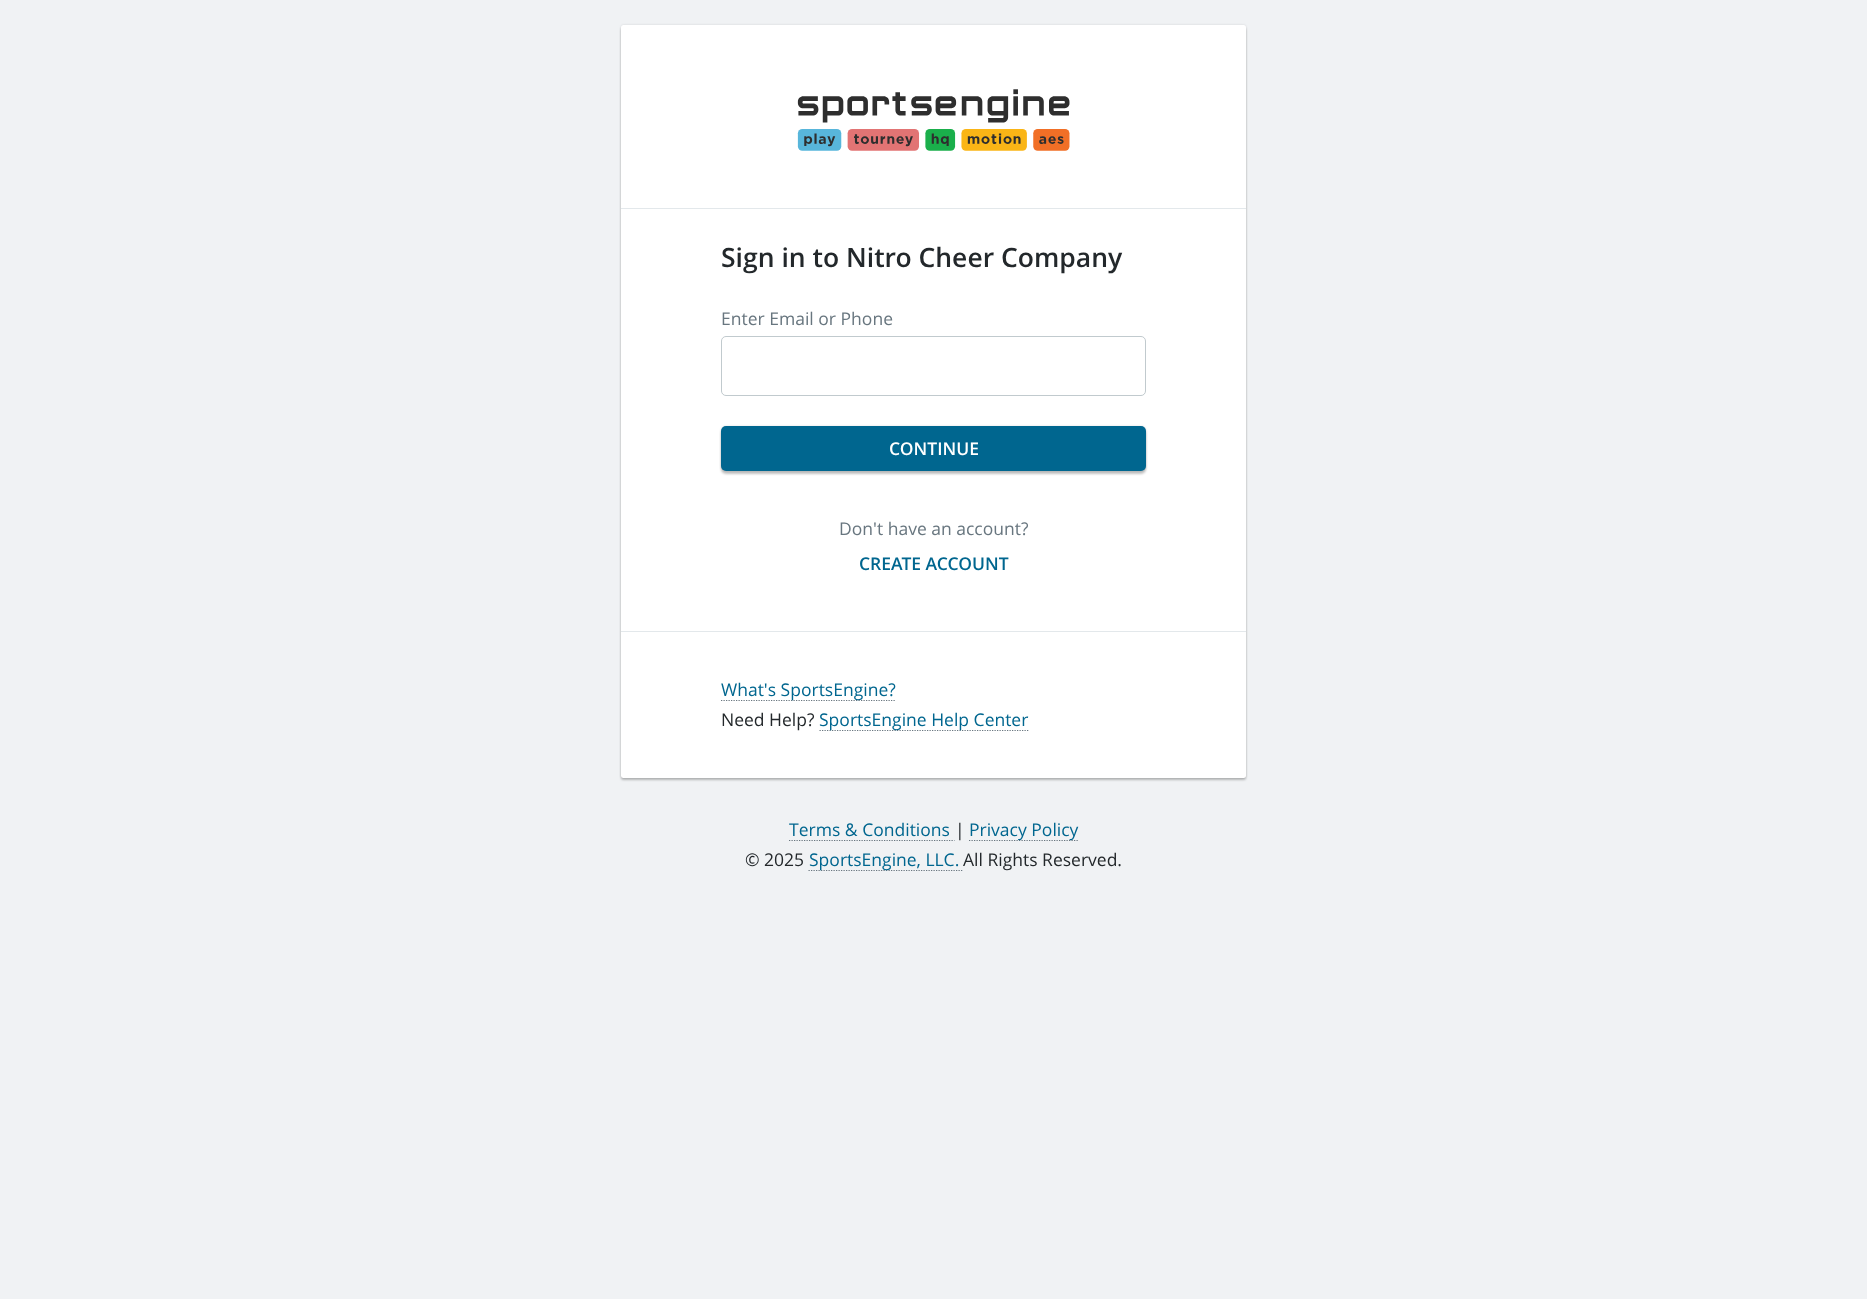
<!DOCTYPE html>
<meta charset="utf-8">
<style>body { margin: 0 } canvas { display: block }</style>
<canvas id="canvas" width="1867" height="1299"></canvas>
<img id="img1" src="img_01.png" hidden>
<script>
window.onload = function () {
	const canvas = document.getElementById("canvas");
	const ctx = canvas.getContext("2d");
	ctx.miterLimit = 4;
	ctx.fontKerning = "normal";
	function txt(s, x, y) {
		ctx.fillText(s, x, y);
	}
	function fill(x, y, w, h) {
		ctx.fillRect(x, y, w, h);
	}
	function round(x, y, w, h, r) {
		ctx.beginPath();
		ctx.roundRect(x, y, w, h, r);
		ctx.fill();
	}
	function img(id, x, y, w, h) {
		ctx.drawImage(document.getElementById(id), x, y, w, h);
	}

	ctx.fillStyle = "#F0F2F4";
	fill(0, 0, 1867, 1299);
	ctx.fillStyle = "rgba(0, 0, 0, 0.24)";
	ctx.filter = "blur(1px)";
	ctx.beginPath();
	ctx.roundRect(621, 28, 625, 752, 2.5);
	ctx.fill();
	ctx.filter = "none";
	ctx.fillStyle = "rgba(0, 0, 0, 0.12)";
	ctx.filter = "blur(1px)";
	ctx.beginPath();
	ctx.roundRect(621, 25, 625, 753, 2.5);
	ctx.fill();
	ctx.filter = "none";
	ctx.fillStyle = "#FFFFFF";
	round(621, 25, 625, 753, 2.5);
	ctx.fillStyle = "#E3E8EB";
	fill(621, 208, 625, 1);
	img("img1", 797, 89, 273, 62);
	ctx.beginPath();
	ctx.roundRect(721.5, 336.5, 424, 59, 4.5);
	ctx.strokeStyle = "#C1CACE";
	ctx.stroke();
	ctx.fillStyle = "rgba(0, 0, 0, 0.24)";
	ctx.filter = "blur(1px)";
	ctx.beginPath();
	ctx.roundRect(721, 429, 425, 45, 5);
	ctx.fill();
	ctx.filter = "none";
	ctx.fillStyle = "rgba(0, 0, 0, 0.12)";
	ctx.filter = "blur(1px)";
	ctx.beginPath();
	ctx.roundRect(721, 426, 425, 45, 5);
	ctx.fill();
	ctx.filter = "none";
	ctx.fillStyle = "#00668F";
	round(721, 426, 425, 45, 5);
	ctx.fillStyle = "#E3E8EB";
	fill(621, 631, 625, 1);
	ctx.beginPath();
	ctx.moveTo(721, 700.5);
	ctx.lineTo(896, 700.5);
	ctx.strokeStyle = "#68767F";
	ctx.lineWidth = 1.2;
	ctx.setLineDash([1.25, 1.25]);
	ctx.stroke();
	ctx.beginPath();
	ctx.moveTo(819.5, 730.5);
	ctx.lineTo(1028.5, 730.5);
	ctx.stroke();
	ctx.beginPath();
	ctx.moveTo(789, 840.5);
	ctx.lineTo(954.5, 840.5);
	ctx.stroke();
	ctx.beginPath();
	ctx.moveTo(969, 840.5);
	ctx.lineTo(1078.5, 840.5);
	ctx.stroke();
	ctx.beginPath();
	ctx.moveTo(808.5, 870.5);
	ctx.lineTo(963.5, 870.5);
	ctx.stroke();
	ctx.font = "600 26.5px Open Sans";
	ctx.fillStyle = "#23282B";
	txt("Sign in to Nitro Cheer Company", 721, 267);
	ctx.font = "17.5px Open Sans";
	ctx.fillStyle = "#68767F";
	txt("Enter Email or Phone", 721, 325);
	ctx.font = "600 17.5px Open Sans";
	ctx.fillStyle = "#FFFFFF";
	txt("CONTINUE", 889, 455);
	ctx.font = "17.5px Open Sans";
	ctx.fillStyle = "#68767F";
	txt("Don't have an account?", 839, 535);
	ctx.font = "600 17.5px Open Sans";
	ctx.fillStyle = "#00668F";
	txt("CREATE ACCOUNT", 859, 570);
	ctx.font = "17.5px Open Sans";
	txt("What's SportsEngine?", 721, 696);
	ctx.fillStyle = "#23282B";
	txt("Need Help?", 721, 726);
	ctx.fillStyle = "#00668F";
	txt("SportsEngine Help Center", 819, 726);
	txt("Terms & Conditions", 789, 836);
	ctx.fillStyle = "#23282B";
	txt("|", 955, 836);
	ctx.fillStyle = "#00668F";
	txt("Privacy Policy", 969, 836);
	ctx.fillStyle = "#23282B";
	txt("© 2025", 745, 866);
	ctx.fillStyle = "#00668F";
	txt("SportsEngine, LLC.", 809, 866);
	ctx.fillStyle = "#23282B";
	txt("All Rights Reserved.", 963, 866);
};
</script>
